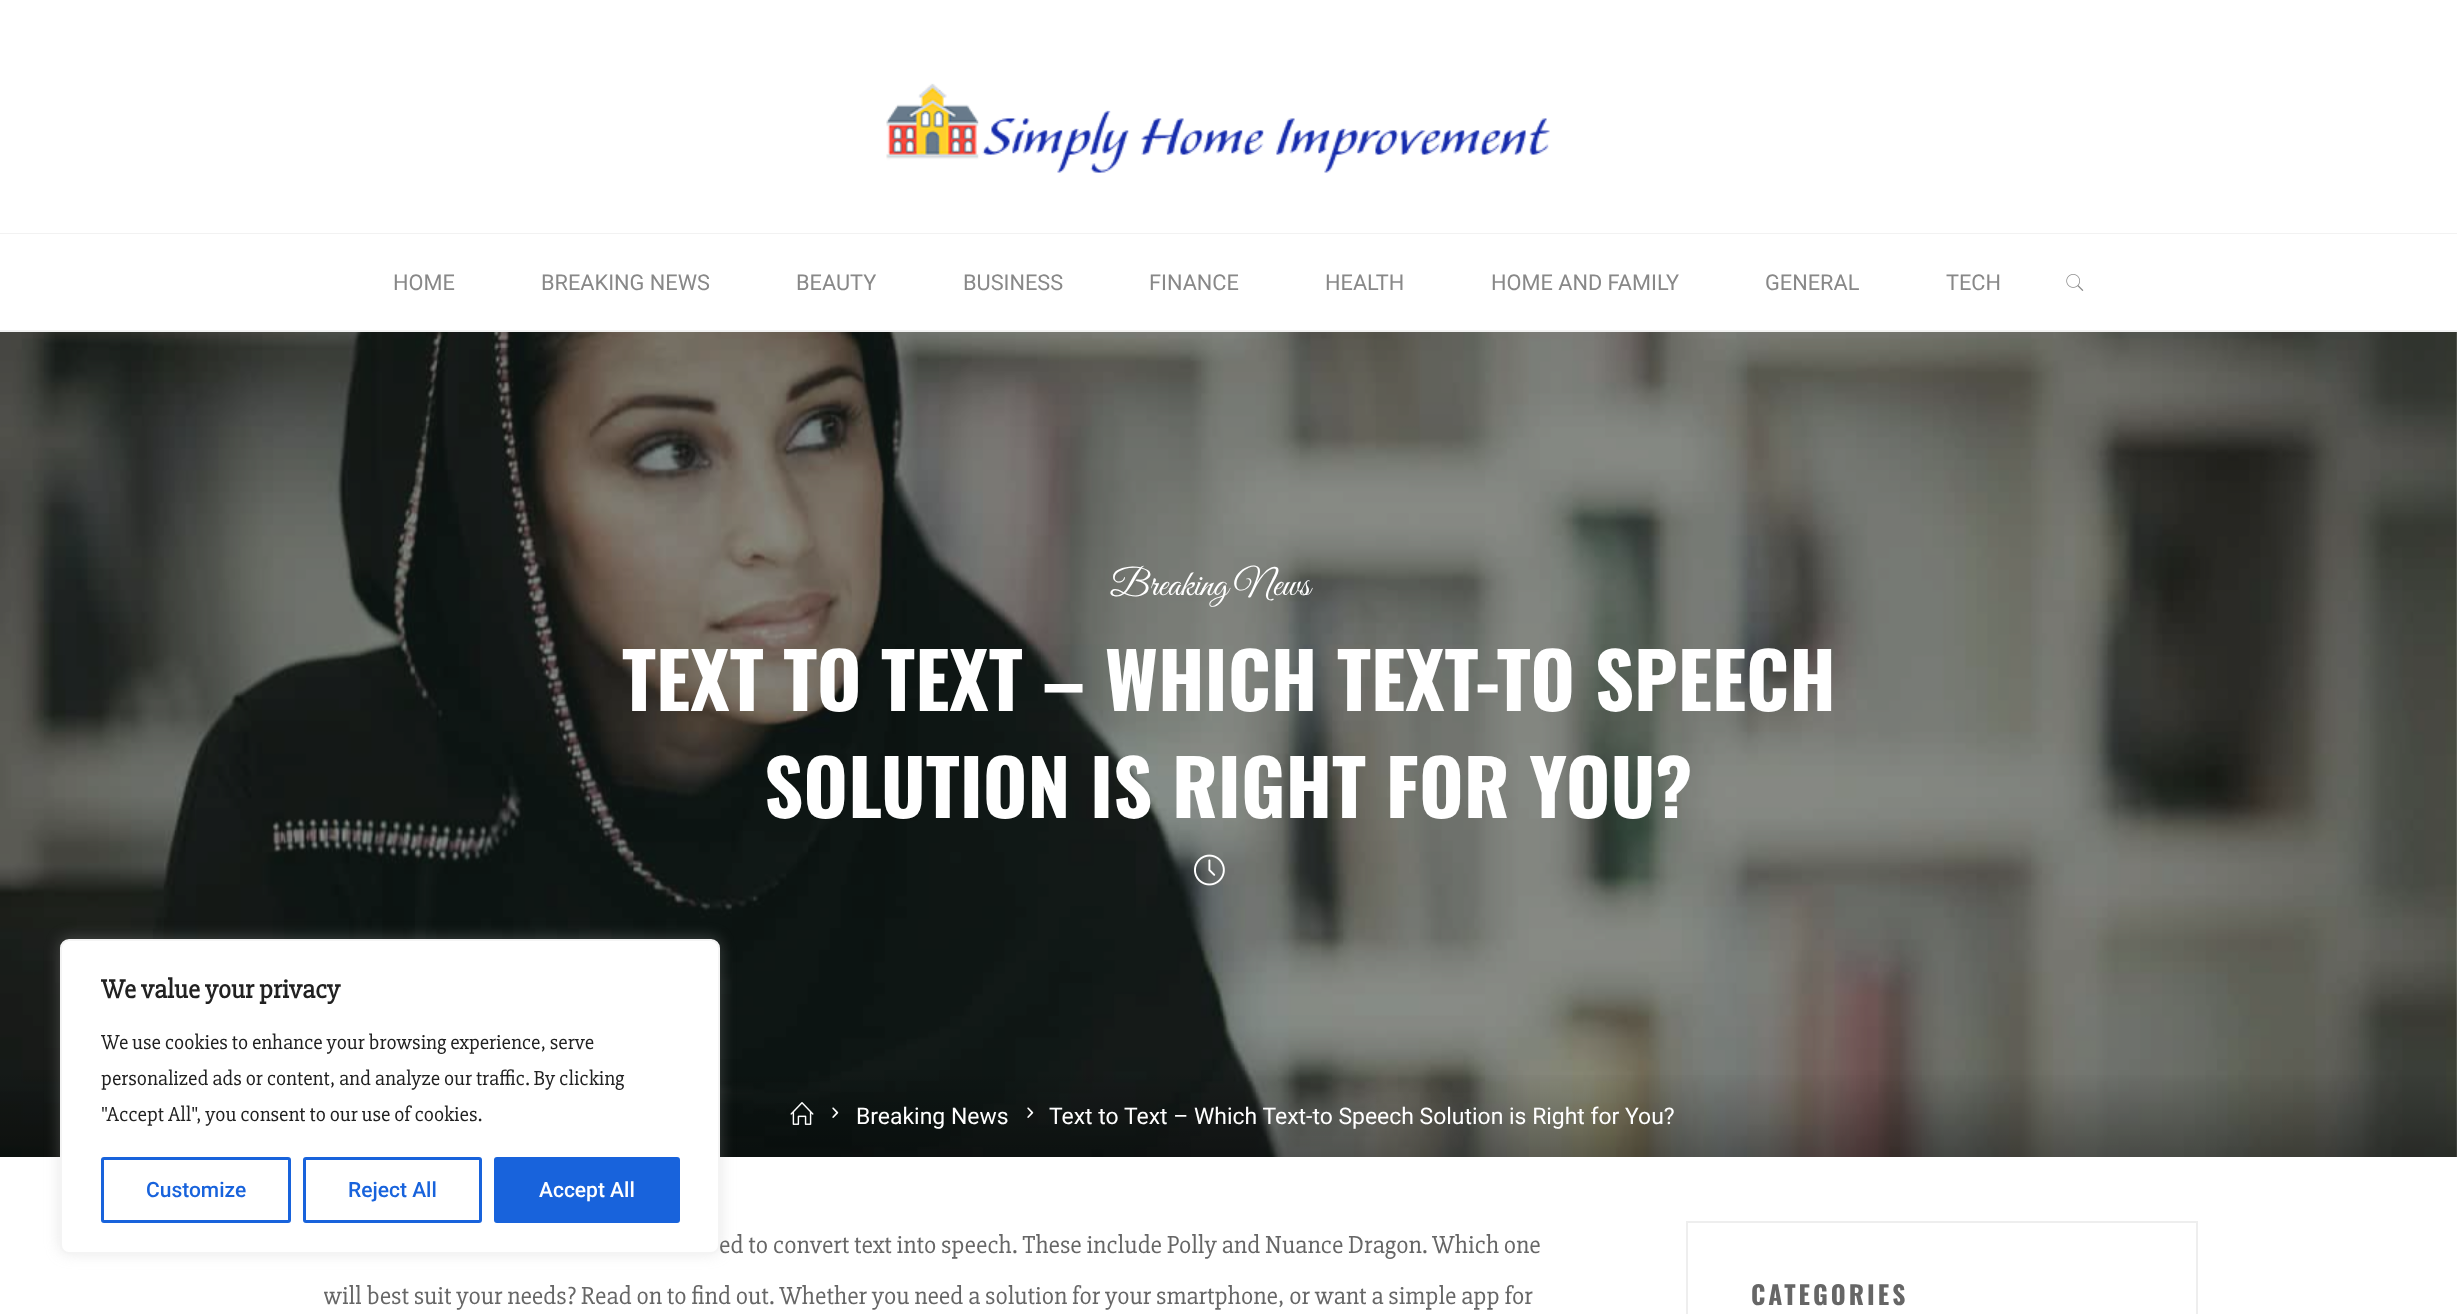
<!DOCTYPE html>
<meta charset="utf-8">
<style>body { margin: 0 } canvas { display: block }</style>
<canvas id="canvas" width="2457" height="1314"></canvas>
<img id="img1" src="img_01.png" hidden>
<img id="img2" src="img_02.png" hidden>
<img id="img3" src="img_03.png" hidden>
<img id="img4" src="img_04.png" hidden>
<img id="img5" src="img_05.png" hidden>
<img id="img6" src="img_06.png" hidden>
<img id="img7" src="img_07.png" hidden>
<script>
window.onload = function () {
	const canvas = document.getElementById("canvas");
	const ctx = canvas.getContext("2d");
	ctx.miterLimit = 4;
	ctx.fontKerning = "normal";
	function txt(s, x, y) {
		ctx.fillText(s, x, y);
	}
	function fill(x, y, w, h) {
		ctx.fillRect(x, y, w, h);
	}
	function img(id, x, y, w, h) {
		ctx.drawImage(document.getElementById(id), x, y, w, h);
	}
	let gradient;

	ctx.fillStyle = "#FFFFFF";
	fill(0, 0, 2457, 1314);
	img("img1", 886, 83, 664, 90);
	ctx.fillStyle = "#F2F2F2";
	fill(0, 233, 2457, 1);
	fill(0, 330, 2457, 2);
	img("img2", 2066, 274, 18, 17);
	img("img3", 0, 332, 2457, 825);
	img("img4", 1194, 854, 31, 32);
	gradient = ctx.createLinearGradient(1229, 1069, 1229, 1157);
	gradient.addColorStop(0, "rgba(0, 0, 0, 0)");
	gradient.addColorStop(1, "rgba(0, 0, 0, 0.3)");
	ctx.fillStyle = gradient;
	fill(0, 1075, 2457, 82);
	img("img5", 790, 1102, 24, 23);
	img("img6", 832, 1107, 7, 11);
	img("img7", 1027, 1107, 7, 11);
	ctx.strokeStyle = "#EEEEEE";
	ctx.lineWidth = 2;
	ctx.strokeRect(1687, 1222, 510, 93);
	ctx.fillStyle = "rgba(172, 171, 171, 0.3)";
	ctx.filter = "blur(7.5px)";
	ctx.beginPath();
	ctx.roundRect(60, 938, 660, 315, 9);
	ctx.fill();
	ctx.filter = "none";
	ctx.fillStyle = "#FFFFFF";
	ctx.beginPath();
	ctx.roundRect(61, 940, 658, 313, 8);
	ctx.fill();
	ctx.strokeStyle = "#F4F4F4";
	ctx.stroke();
	ctx.beginPath();
	ctx.roundRect(102.5, 1158.5, 187, 63, 1.5);
	ctx.strokeStyle = "#1863DC";
	ctx.lineWidth = 3;
	ctx.stroke();
	ctx.beginPath();
	ctx.roundRect(304.5, 1158.5, 176, 63, 1.5);
	ctx.stroke();
	ctx.fillStyle = "#1863DC";
	ctx.beginPath();
	ctx.roundRect(495.5, 1158.5, 183, 63, 1.5);
	ctx.fill();
	ctx.stroke();
	ctx.font = "21.75px Roboto";
	ctx.fillStyle = "#888888";
	txt("HOME", 393, 290);
	txt("BREAKING NEWS", 541, 290);
	txt("BEAUTY", 796, 290);
	txt("BUSINESS", 963, 290);
	txt("FINANCE", 1149, 290);
	txt("HEALTH", 1325, 290);
	txt("HOME AND FAMILY", 1491, 290);
	txt("GENERAL", 1765, 290);
	txt("TECH", 1946, 290);
	ctx.font = "37px Great Vibes";
	ctx.fillStyle = "#FFFFFF";
	txt("Breaking News", 1110, 595);
	ctx.font = "bold 76.5px Oswald";
	txt("TEXT TO TEXT – WHICH TEXT-TO SPEECH", 622, 711);
	txt("SOLUTION IS RIGHT FOR YOU?", 764, 818);
	ctx.font = "22.95px Roboto";
	txt("Breaking News", 856, 1124);
	txt("Text to Text – Which Text-to Speech Solution is Right for You?", 1049, 1124);
	ctx.font = "25.5px 'Slabo 27px'";
	ctx.fillStyle = "#666666";
	txt("ed to convert text into speech. These include Polly and Nuance Dragon. Which one", 719, 1253);
	ctx.save();
	ctx.beginPath();
	ctx.rect(324, 1221, 1241, 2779);
	ctx.clip();
	txt("will best suit your needs? Read on to find out. Whether you need a solution for your smartphone, or want a simple app for", 323, 1304);
	ctx.restore();
	ctx.letterSpacing = "3px";
	ctx.font = "bold 25.5px Oswald";
	txt("CATEGORIES", 1751, 1305);
	ctx.letterSpacing = "0px";
	ctx.font = "bold 27px 'Slabo 27px'";
	ctx.fillStyle = "#212121";
	txt("We value your privacy", 101, 998);
	ctx.font = "21px 'Slabo 27px'";
	txt("We use cookies to enhance your browsing experience, serve", 101, 1049);
	txt("personalized ads or content, and analyze our traffic. By clicking", 101, 1085);
	txt("\"Accept All\", you consent to our use of cookies.", 101, 1121);
	ctx.font = "500 21px Roboto";
	ctx.fillStyle = "#1863DC";
	txt("Customize", 146, 1197);
	txt("Reject All", 348, 1197);
	ctx.fillStyle = "#FFFFFF";
	txt("Accept All", 539, 1197);
};
</script>
